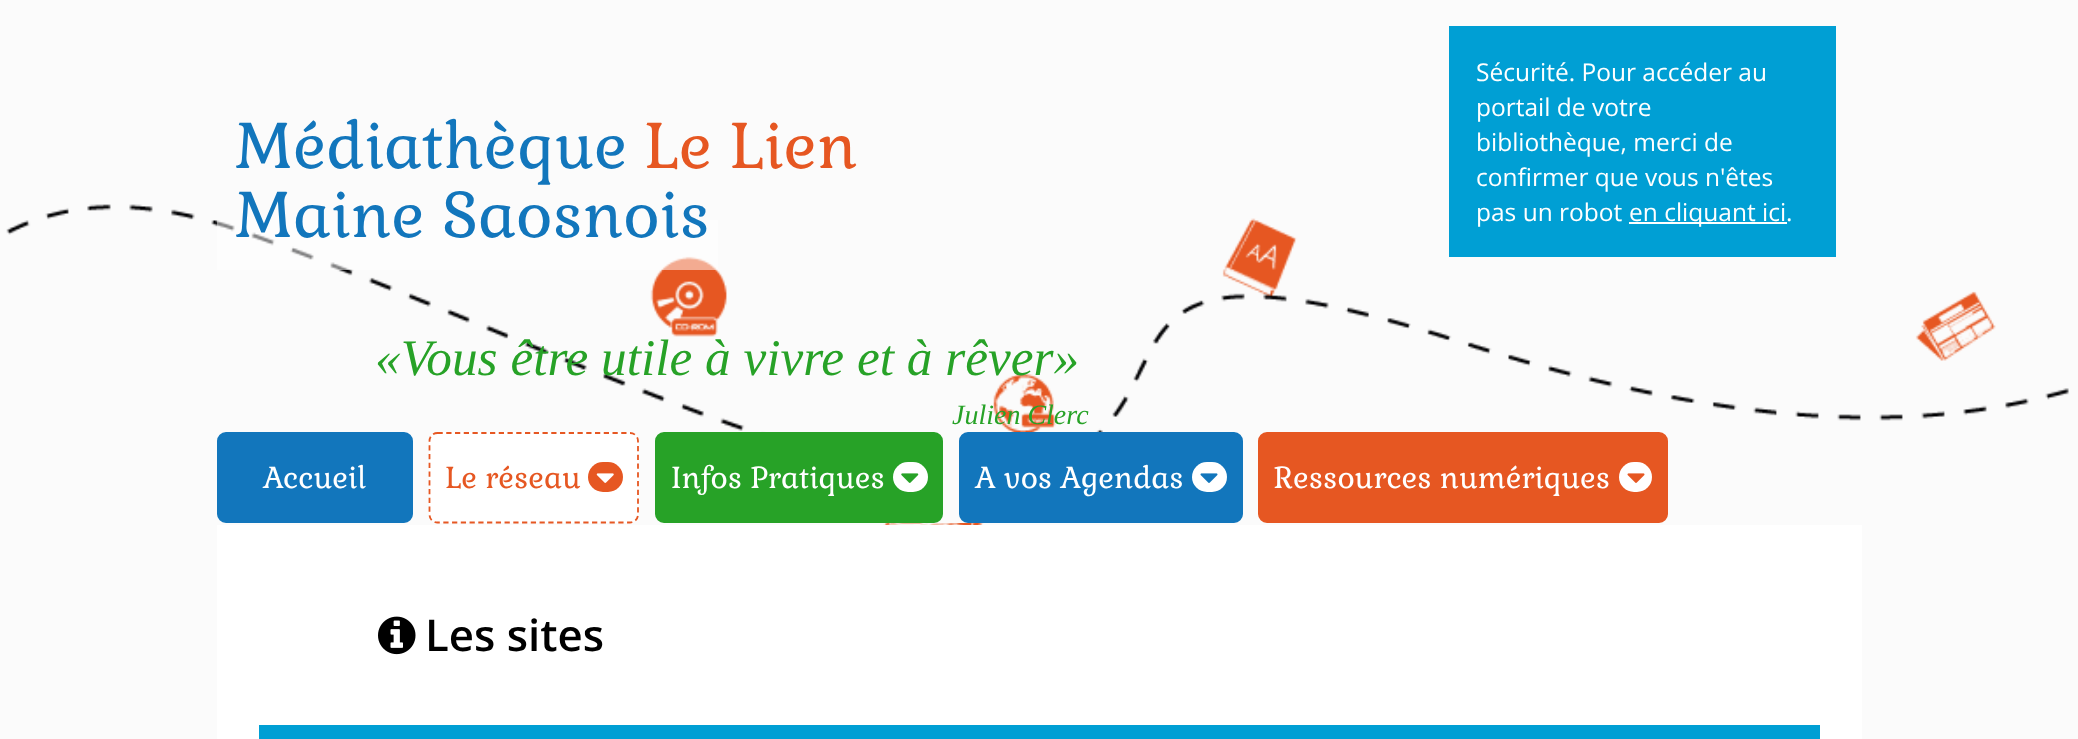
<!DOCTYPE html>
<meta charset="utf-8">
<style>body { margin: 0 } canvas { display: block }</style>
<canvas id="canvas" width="2078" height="739"></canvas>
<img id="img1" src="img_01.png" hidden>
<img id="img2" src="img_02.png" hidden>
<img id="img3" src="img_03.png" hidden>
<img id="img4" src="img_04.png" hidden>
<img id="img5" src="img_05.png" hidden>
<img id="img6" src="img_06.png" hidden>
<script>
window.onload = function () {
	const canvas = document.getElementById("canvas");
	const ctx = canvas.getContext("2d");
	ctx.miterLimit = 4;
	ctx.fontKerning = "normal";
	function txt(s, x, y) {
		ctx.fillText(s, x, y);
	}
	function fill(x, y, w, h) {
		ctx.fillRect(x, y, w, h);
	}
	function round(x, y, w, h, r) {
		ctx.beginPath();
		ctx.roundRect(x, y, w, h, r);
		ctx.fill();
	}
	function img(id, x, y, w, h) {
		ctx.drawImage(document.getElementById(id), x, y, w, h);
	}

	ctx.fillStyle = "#E65722";
	fill(0, 0, 2078, 739);
	img("img1", 0, 0, 2078, 739);
	ctx.fillStyle = "rgba(255, 255, 255, 0.5)";
	fill(217, 220, 501, 50);
	ctx.fillStyle = "#009FD4";
	fill(1449, 26, 387, 231);
	ctx.fillStyle = "#FFFFFF";
	fill(1629, 222, 158, 2);
	ctx.fillStyle = "#FBFBFB";
	fill(760, 432, 343, 91);
	ctx.fillStyle = "#1276BC";
	ctx.beginPath();
	ctx.roundRect(218, 433, 194, 89, 8);
	ctx.fill();
	ctx.strokeStyle = "#1276BC";
	ctx.lineWidth = 2;
	ctx.stroke();
	ctx.fillStyle = "#FFFFFF";
	round(429, 432, 210, 91, 9);
	ctx.beginPath();
	ctx.moveTo(437.5, 433);
	ctx.lineTo(630, 433);
	ctx.bezierCurveTo(634.5, 433, 638, 436.5, 638, 441);
	ctx.lineTo(638, 514.5);
	ctx.bezierCurveTo(638, 519, 634.5, 522.5, 630, 522.5);
	ctx.lineTo(437.5, 522.5);
	ctx.bezierCurveTo(433, 522.5, 429.5, 519, 429.5, 514.5);
	ctx.lineTo(429.5, 441);
	ctx.bezierCurveTo(429.5, 436.5, 433, 433, 437.5, 433);
	ctx.closePath();
	ctx.strokeStyle = "#E65722";
	ctx.lineWidth = 1.8;
	ctx.setLineDash([5.25, 3.5]);
	ctx.stroke();
	ctx.fillStyle = "#E65722";
	round(588, 462, 35, 30, 15);
	img("img2", 596, 473, 18, 10);
	ctx.fillStyle = "#27A227";
	ctx.beginPath();
	ctx.roundRect(656, 433, 286, 89, 8);
	ctx.fill();
	ctx.strokeStyle = "#27A227";
	ctx.lineWidth = 2;
	ctx.setLineDash([]);
	ctx.stroke();
	ctx.fillStyle = "#FFFFFF";
	round(893, 462, 35, 30, 15);
	img("img3", 901, 473, 18, 10);
	ctx.fillStyle = "#1276BC";
	ctx.beginPath();
	ctx.roundRect(960, 433, 282, 89, 8);
	ctx.fill();
	ctx.strokeStyle = "#1276BC";
	ctx.stroke();
	ctx.fillStyle = "#FFFFFF";
	round(1192, 462, 35, 30, 15);
	img("img4", 1200, 473, 18, 10);
	ctx.fillStyle = "#E65722";
	ctx.beginPath();
	ctx.roundRect(1259, 433, 408, 89, 8);
	ctx.fill();
	ctx.strokeStyle = "#E65722";
	ctx.stroke();
	ctx.fillStyle = "#FFFFFF";
	round(1619, 462, 33, 30, 15);
	img("img5", 1627, 473, 18, 10);
	fill(217, 525, 1645, 214);
	img("img6", 378, 616, 38, 39);
	ctx.fillStyle = "#009FD4";
	fill(259, 725, 1561, 14);
	ctx.font = "63px Gabriela";
	ctx.fillStyle = "#1276BC";
	txt("Médiathèque", 235, 168);
	ctx.fillStyle = "#E65722";
	txt("Le Lien", 644, 168);
	ctx.fillStyle = "#1276BC";
	txt("Maine Saosnois", 235, 237);
	ctx.font = "italic 51.3px Liberation Serif";
	ctx.fillStyle = "#27A227";
	txt("«Vous être utile à vivre et à rêver»", 375, 375);
	ctx.font = "italic 28px Liberation Serif";
	txt("Julien Clerc", 952, 424);
	ctx.font = "24.5px Open Sans";
	ctx.fillStyle = "#FFFFFF";
	txt("Sécurité. Pour accéder au", 1476, 81);
	txt("portail de votre", 1476, 116);
	txt("bibliothèque, merci de", 1476, 151);
	txt("confirmer que vous n'êtes", 1476, 186);
	txt("pas un robot", 1476, 221);
	txt("en cliquant ici.", 1629, 221);
	ctx.font = "29.75px Gabriela";
	txt("Accueil", 263, 488);
	ctx.fillStyle = "#E65722";
	txt("Le réseau", 445, 488);
	ctx.fillStyle = "#FFFFFF";
	txt("Infos Pratiques", 671, 488);
	txt("A vos Agendas", 975, 488);
	txt("Ressources numériques", 1274, 488);
	ctx.font = "600 43.75px Open Sans";
	ctx.fillStyle = "#000000";
	txt("Les sites", 425, 651);
};
</script>
